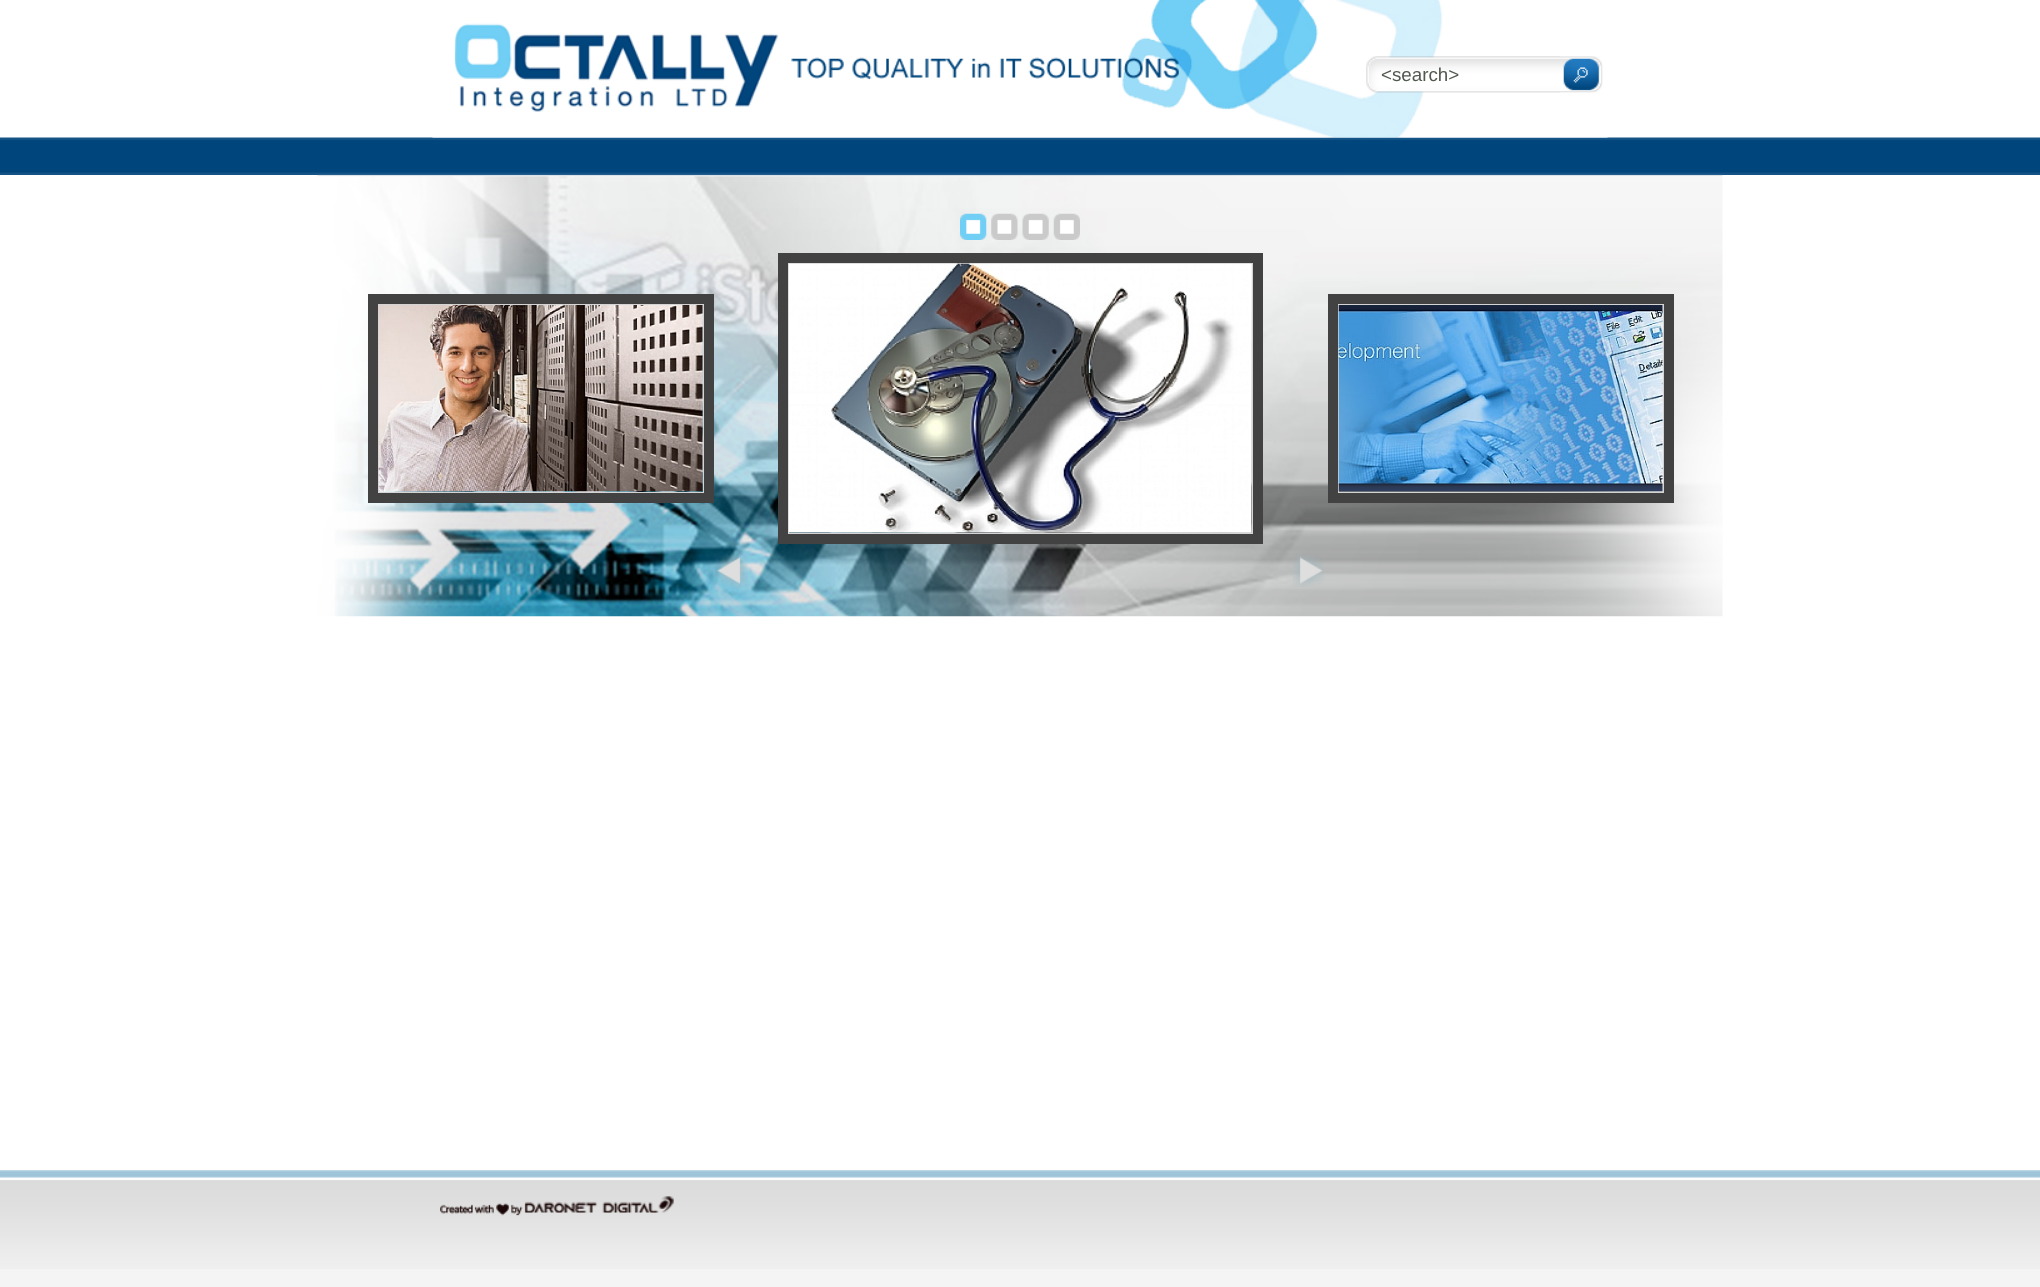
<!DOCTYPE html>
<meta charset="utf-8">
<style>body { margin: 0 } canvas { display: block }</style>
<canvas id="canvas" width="2040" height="1287"></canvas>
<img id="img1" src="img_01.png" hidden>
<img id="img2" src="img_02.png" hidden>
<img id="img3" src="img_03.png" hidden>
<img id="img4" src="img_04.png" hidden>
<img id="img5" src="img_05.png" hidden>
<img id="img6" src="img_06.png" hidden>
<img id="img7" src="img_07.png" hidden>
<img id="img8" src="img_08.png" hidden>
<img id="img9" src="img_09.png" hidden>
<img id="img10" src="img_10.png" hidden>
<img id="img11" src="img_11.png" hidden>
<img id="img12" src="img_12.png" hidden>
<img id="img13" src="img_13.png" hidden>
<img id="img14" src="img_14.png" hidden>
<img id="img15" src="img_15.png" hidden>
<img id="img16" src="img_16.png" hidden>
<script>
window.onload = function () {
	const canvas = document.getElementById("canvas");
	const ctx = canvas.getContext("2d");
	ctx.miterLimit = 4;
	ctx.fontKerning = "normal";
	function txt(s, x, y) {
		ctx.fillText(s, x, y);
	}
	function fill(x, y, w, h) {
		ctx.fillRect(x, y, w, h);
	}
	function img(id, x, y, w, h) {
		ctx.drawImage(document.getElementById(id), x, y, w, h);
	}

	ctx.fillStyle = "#FFFFFF";
	fill(0, 0, 2040, 1287);
	img("img1", 0, 137, 2040, 38);
	img("img2", 317, 174, 1406, 443);
	img("img3", 432, 0, 1176, 138);
	img("img4", 1366, 56, 194, 37);
	img("img5", 1560, 56, 43, 37);
	img("img6", 960, 213, 27, 27);
	img("img7", 991, 213, 27, 27);
	img("img8", 1022, 213, 27, 27);
	img("img9", 1053, 213, 27, 27);
	ctx.strokeStyle = "#424242";
	ctx.lineWidth = 10;
	ctx.strokeRect(373, 299, 336, 199);
	ctx.strokeStyle = "#D4D4D4";
	ctx.lineWidth = 1;
	ctx.strokeRect(378.5, 304.5, 325, 188);
	img("img10", 378, 305, 325, 187);
	ctx.strokeStyle = "#424242";
	ctx.lineWidth = 10;
	ctx.strokeRect(783, 258, 475, 281);
	ctx.strokeStyle = "#D4D4D4";
	ctx.lineWidth = 1;
	ctx.strokeRect(788.5, 263.5, 464, 270);
	img("img11", 788, 263, 464, 270);
	ctx.strokeStyle = "#424242";
	ctx.lineWidth = 10;
	ctx.strokeRect(1333, 299, 336, 199);
	ctx.strokeStyle = "#D4D4D4";
	ctx.lineWidth = 1;
	ctx.strokeRect(1338.5, 304.5, 325, 188);
	img("img12", 1338, 305, 325, 187);
	img("img13", 713, 551, 35, 37);
	img("img14", 1293, 555, 31, 32);
	ctx.fillStyle = "#F4F4F4";
	fill(0, 1269, 2040, 18);
	img("img15", 0, 1170, 2040, 99);
	img("img16", 440, 1196, 234, 20);
	ctx.font = "18.75px Liberation Sans";
	ctx.fillStyle = "#51584D";
	txt("<search>", 1381, 81);
};
</script>
